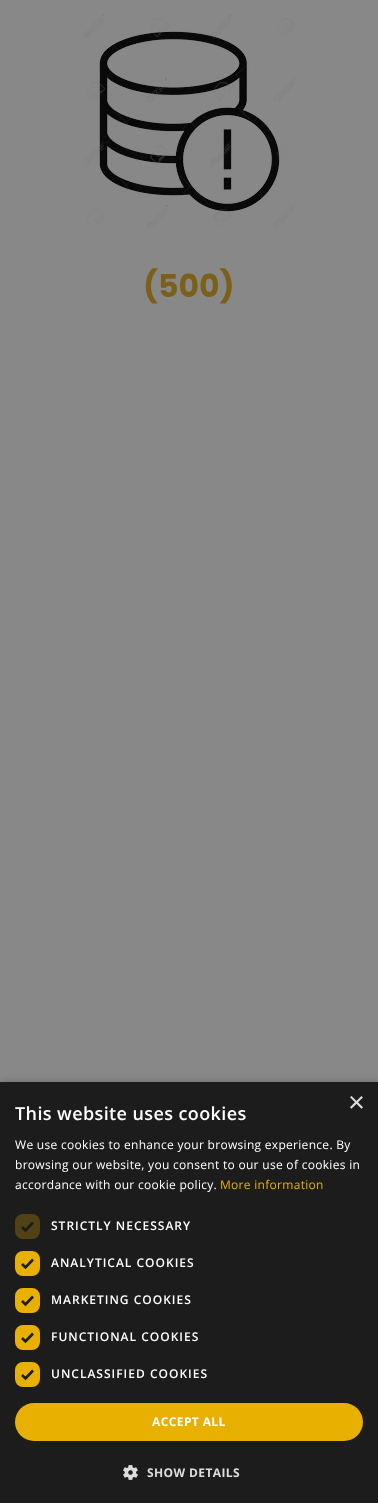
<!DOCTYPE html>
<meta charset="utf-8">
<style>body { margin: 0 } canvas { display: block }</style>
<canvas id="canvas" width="378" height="1503"></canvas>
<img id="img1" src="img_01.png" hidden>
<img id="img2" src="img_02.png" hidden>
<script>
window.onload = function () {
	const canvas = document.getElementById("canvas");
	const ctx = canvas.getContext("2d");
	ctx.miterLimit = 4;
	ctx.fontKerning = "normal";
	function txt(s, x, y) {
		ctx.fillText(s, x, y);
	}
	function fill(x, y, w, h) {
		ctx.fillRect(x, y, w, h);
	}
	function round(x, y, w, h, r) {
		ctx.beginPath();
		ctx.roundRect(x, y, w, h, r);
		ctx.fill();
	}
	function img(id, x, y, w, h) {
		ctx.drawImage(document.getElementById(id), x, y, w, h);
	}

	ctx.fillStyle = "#888888";
	fill(0, 0, 378, 1503);
	img("img1", 83, 14, 212, 215);
	ctx.fillStyle = "rgba(0, 0, 0, 0.35)";
	ctx.filter = "blur(4px)";
	ctx.beginPath();
	ctx.rect(1, 1084, 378, 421);
	ctx.fill();
	ctx.filter = "none";
	ctx.fillStyle = "#1C1C1C";
	fill(0, 1082, 378, 421);
	ctx.fillStyle = "#514215";
	round(15, 1214, 25, 25, 8);
	ctx.beginPath();
	ctx.moveTo(22, 1227);
	ctx.lineTo(25.5, 1230.5);
	ctx.lineTo(33, 1222.5);
	ctx.strokeStyle = "#1C1C1C";
	ctx.lineWidth = 2.6;
	ctx.stroke();
	ctx.fillStyle = "#E8B000";
	ctx.beginPath();
	ctx.roundRect(16, 1252, 23, 23, 7);
	ctx.fill();
	ctx.strokeStyle = "#E8B000";
	ctx.lineWidth = 2;
	ctx.stroke();
	ctx.beginPath();
	ctx.moveTo(22, 1264);
	ctx.lineTo(25.5, 1267.5);
	ctx.lineTo(33, 1259.5);
	ctx.strokeStyle = "#1C1C1C";
	ctx.lineWidth = 2.6;
	ctx.stroke();
	ctx.beginPath();
	ctx.roundRect(16, 1289, 23, 23, 7);
	ctx.fill();
	ctx.strokeStyle = "#E8B000";
	ctx.lineWidth = 2;
	ctx.stroke();
	ctx.beginPath();
	ctx.moveTo(22, 1301);
	ctx.lineTo(25.5, 1304.5);
	ctx.lineTo(33, 1296.5);
	ctx.strokeStyle = "#1C1C1C";
	ctx.lineWidth = 2.6;
	ctx.stroke();
	ctx.beginPath();
	ctx.roundRect(16, 1326, 23, 23, 7);
	ctx.fill();
	ctx.strokeStyle = "#E8B000";
	ctx.lineWidth = 2;
	ctx.stroke();
	ctx.beginPath();
	ctx.moveTo(22, 1338);
	ctx.lineTo(25.5, 1341.5);
	ctx.lineTo(33, 1333.5);
	ctx.strokeStyle = "#1C1C1C";
	ctx.lineWidth = 2.6;
	ctx.stroke();
	ctx.beginPath();
	ctx.roundRect(16, 1363, 23, 23, 7);
	ctx.fill();
	ctx.strokeStyle = "#E8B000";
	ctx.lineWidth = 2;
	ctx.stroke();
	ctx.beginPath();
	ctx.moveTo(22, 1375);
	ctx.lineTo(25.5, 1378.5);
	ctx.lineTo(33, 1370.5);
	ctx.strokeStyle = "#1C1C1C";
	ctx.lineWidth = 2.6;
	ctx.stroke();
	round(15, 1403, 348, 38, 19);
	img("img2", 123, 1465, 15, 15);
	ctx.font = "bold 31.5px Poppins";
	ctx.fillStyle = "#7C601A";
	txt("(500)", 143, 297);
	ctx.font = "29px Liberation Sans";
	ctx.fillStyle = "#DDDDDD";
	txt("×", 348, 1112);
	ctx.letterSpacing = "0.4px";
	ctx.font = "600 18px Open Sans";
	ctx.fillStyle = "#FFFFFF";
	txt("This website uses cookies", 15, 1120);
	ctx.letterSpacing = "0.3px";
	ctx.font = "12px Open Sans";
	txt("We use cookies to enhance your browsing experience. By", 15, 1149);
	txt("browsing our website, you consent to our use of cookies in", 15, 1169);
	txt("accordance with our cookie policy.", 15, 1189);
	ctx.fillStyle = "#E8B000";
	txt("More information", 220, 1189);
	ctx.letterSpacing = "1px";
	ctx.font = "600 12px Open Sans";
	ctx.fillStyle = "#FFFFFF";
	txt("STRICTLY NECESSARY", 51, 1230);
	txt("ANALYTICAL COOKIES", 51, 1267);
	txt("MARKETING COOKIES", 51, 1304);
	txt("FUNCTIONAL COOKIES", 51, 1341);
	txt("UNCLASSIFIED COOKIES", 51, 1378);
	ctx.letterSpacing = "0.4px";
	ctx.font = "bold 12px Open Sans";
	txt("ACCEPT ALL", 152, 1426);
	ctx.fillStyle = "#DDDDDD";
	txt("SHOW DETAILS", 147, 1477);
};
</script>
